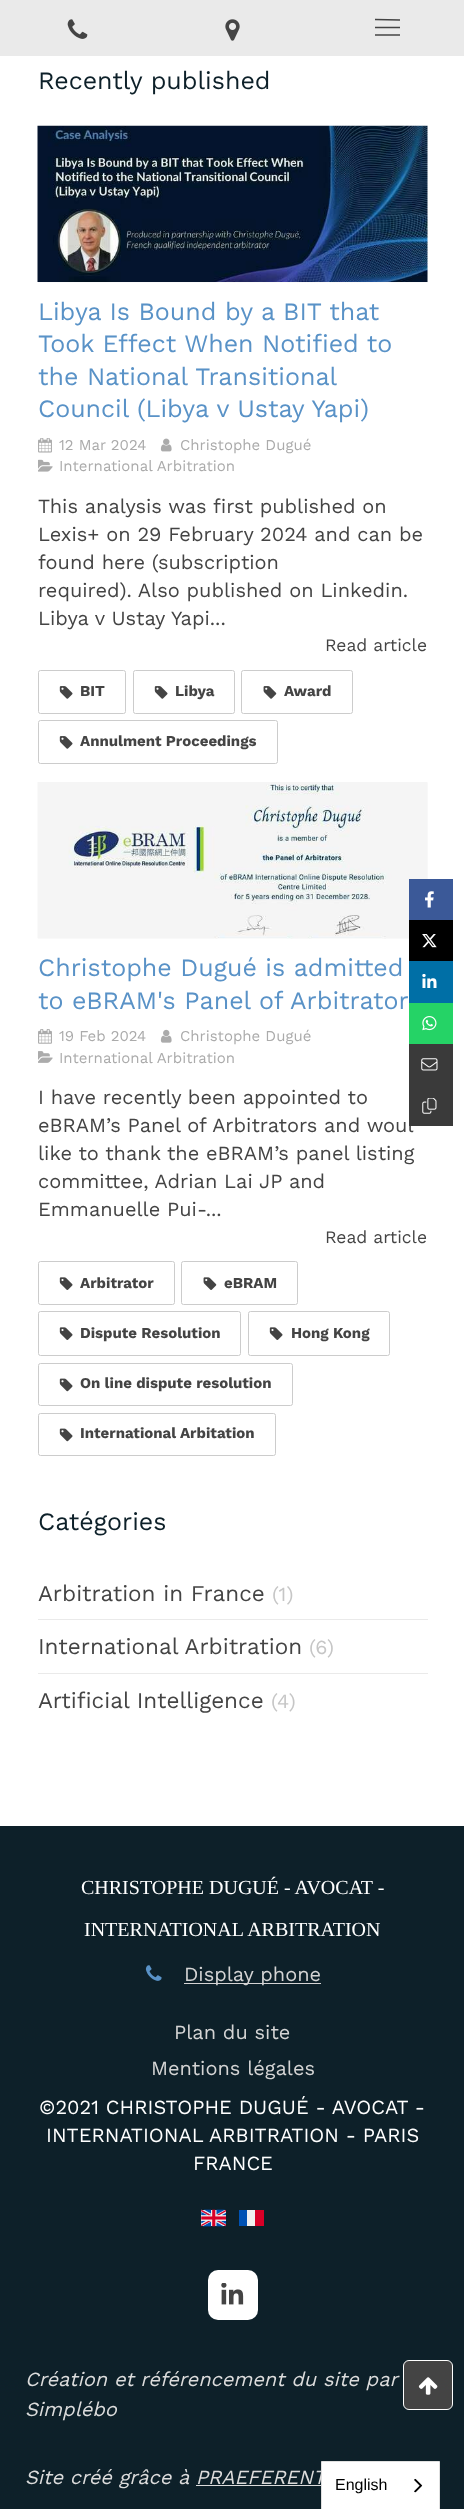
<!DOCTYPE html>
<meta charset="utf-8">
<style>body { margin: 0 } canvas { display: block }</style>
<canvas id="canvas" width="464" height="2509"></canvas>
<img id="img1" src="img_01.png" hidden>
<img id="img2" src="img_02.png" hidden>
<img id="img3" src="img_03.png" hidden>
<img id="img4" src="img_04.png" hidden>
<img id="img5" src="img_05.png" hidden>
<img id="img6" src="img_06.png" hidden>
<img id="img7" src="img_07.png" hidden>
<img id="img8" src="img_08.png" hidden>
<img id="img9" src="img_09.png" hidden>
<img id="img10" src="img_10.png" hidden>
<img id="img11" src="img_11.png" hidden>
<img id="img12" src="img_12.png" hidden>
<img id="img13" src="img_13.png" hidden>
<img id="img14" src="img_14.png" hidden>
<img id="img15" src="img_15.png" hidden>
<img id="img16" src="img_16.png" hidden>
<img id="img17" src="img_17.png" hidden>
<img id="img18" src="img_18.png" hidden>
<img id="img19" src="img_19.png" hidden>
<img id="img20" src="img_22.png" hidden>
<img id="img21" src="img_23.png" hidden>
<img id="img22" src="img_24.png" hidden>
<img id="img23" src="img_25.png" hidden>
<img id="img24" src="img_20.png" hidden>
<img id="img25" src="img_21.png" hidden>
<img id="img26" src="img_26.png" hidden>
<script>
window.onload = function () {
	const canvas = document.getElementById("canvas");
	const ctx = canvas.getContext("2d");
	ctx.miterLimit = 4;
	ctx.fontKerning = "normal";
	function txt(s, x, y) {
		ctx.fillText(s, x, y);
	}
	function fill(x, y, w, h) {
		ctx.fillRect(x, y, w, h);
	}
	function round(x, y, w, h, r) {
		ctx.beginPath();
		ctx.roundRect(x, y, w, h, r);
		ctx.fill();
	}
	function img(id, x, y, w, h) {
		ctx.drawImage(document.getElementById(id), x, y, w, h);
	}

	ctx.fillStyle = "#FFFFFF";
	fill(0, 0, 464, 2509);
	ctx.fillStyle = "#EAEAEA";
	fill(0, 0, 464, 56);
	img("img1", 67, 19, 21, 20);
	img("img2", 225, 19, 15, 22);
	ctx.beginPath();
	ctx.moveTo(375, 27.5);
	ctx.lineTo(400, 27.5);
	ctx.moveTo(375, 19.5);
	ctx.lineTo(400, 20);
	ctx.strokeStyle = "#444444";
	ctx.lineWidth = 1.5;
	ctx.stroke();
	ctx.fillStyle = "#6E6E6E";
	fill(375, 34, 25, 2);
	ctx.fillStyle = "#FAFAFA";
	fill(38, 126, 390, 157);
	img("img3", 37, 125, 391, 157);
	img("img4", 38, 438, 14, 15);
	img("img5", 160, 438, 12, 14);
	img("img6", 38, 459, 15, 13);
	ctx.beginPath();
	ctx.roundRect(38.5, 670.5, 87, 43, 2);
	ctx.strokeStyle = "#CCCCCC";
	ctx.lineWidth = 1;
	ctx.stroke();
	img("img7", 59, 686, 14, 13);
	ctx.beginPath();
	ctx.roundRect(133.5, 670.5, 101, 43, 2);
	ctx.stroke();
	img("img7", 154, 686, 14, 13);
	ctx.beginPath();
	ctx.roundRect(241.5, 670.5, 111, 43, 2);
	ctx.stroke();
	img("img8", 263, 686, 14, 13);
	ctx.beginPath();
	ctx.roundRect(38.5, 720.5, 239, 43, 2);
	ctx.stroke();
	img("img7", 59, 736, 14, 13);
	fill(38, 783, 390, 156);
	img("img9", 37, 782, 391, 157);
	img("img10", 38, 1029, 14, 15);
	img("img11", 160, 1029, 12, 14);
	img("img12", 38, 1051, 15, 12);
	ctx.beginPath();
	ctx.roundRect(38.5, 1261.5, 136, 43, 2);
	ctx.stroke();
	img("img13", 59, 1277, 14, 13);
	ctx.beginPath();
	ctx.roundRect(181.5, 1261.5, 116, 43, 2);
	ctx.stroke();
	img("img14", 203, 1277, 14, 13);
	ctx.beginPath();
	ctx.roundRect(38.5, 1311.5, 202, 44, 2);
	ctx.stroke();
	img("img13", 59, 1327, 14, 13);
	ctx.beginPath();
	ctx.roundRect(248.5, 1311.5, 141, 44, 2);
	ctx.stroke();
	img("img13", 269, 1327, 14, 13);
	ctx.beginPath();
	ctx.roundRect(38.5, 1363.5, 254, 42, 2);
	ctx.stroke();
	img("img15", 59, 1378, 14, 14);
	ctx.beginPath();
	ctx.roundRect(38.5, 1413.5, 237, 42, 2);
	ctx.stroke();
	img("img15", 59, 1428, 14, 14);
	ctx.fillStyle = "#EAEAEA";
	fill(38, 1619, 390, 1);
	fill(38, 1673, 390, 1);
	ctx.fillStyle = "#3B5998";
	fill(409, 879, 44, 41);
	img("img16", 425, 891, 9, 17);
	ctx.fillStyle = "#000000";
	fill(409, 920, 44, 41);
	img("img17", 422, 934, 15, 14);
	ctx.fillStyle = "#006FA6";
	fill(409, 961, 44, 42);
	img("img18", 422, 974, 15, 14);
	ctx.fillStyle = "#25D366";
	fill(409, 1003, 44, 41);
	img("img19", 422, 1016, 15, 15);
	ctx.fillStyle = "#0D2029";
	fill(0, 1826, 464, 683);
	img("img20", 145, 1965, 17, 16);
	ctx.fillStyle = "#D4D4D4";
	fill(184, 1983, 137, 1);
	img("img21", 201, 2209, 25, 18);
	ctx.fillStyle = "#0052B4";
	fill(239, 2210, 8, 16);
	ctx.fillStyle = "#F0F0F0";
	fill(247, 2210, 8, 16);
	ctx.fillStyle = "#D80027";
	fill(255, 2210, 9, 16);
	ctx.fillStyle = "#FFFFFF";
	round(208, 2270, 50, 50, 10);
	img("img22", 221, 2283, 23, 22);
	ctx.fillStyle = "#DCDCDC";
	fill(196, 2485, 125, 1);
	ctx.fillStyle = "#444444";
	ctx.beginPath();
	ctx.roundRect(403.5, 2360.5, 49, 49, 5.5);
	ctx.fill();
	ctx.strokeStyle = "#FFFFFF";
	ctx.stroke();
	img("img23", 418, 2377, 20, 18);
	ctx.font = "25px Work Sans";
	ctx.fillStyle = "#0D2029";
	txt("Recently published", 38, 89);
	ctx.fillStyle = "#5992C7";
	txt("Libya Is Bound by a BIT that", 38, 320);
	txt("Took Effect When Notified to", 38, 352);
	txt("the National Transitional", 38, 385);
	txt("Council (Libya v Ustay Yapi)", 38, 417);
	ctx.font = "15px Work Sans";
	ctx.fillStyle = "#ABABAB";
	txt("12 Mar 2024", 59, 450);
	txt("Christophe Dugué", 180, 450);
	txt("International Arbitration", 59, 471);
	ctx.font = "20px Work Sans";
	ctx.fillStyle = "#444444";
	txt("This analysis was first published on", 38, 513);
	txt("Lexis+ on 29 February 2024 and can be", 38, 541);
	txt("found here (subscription", 38, 569);
	txt("required). Also published on Linkedin.", 38, 597);
	txt("Libya v Ustay Yapi...", 38, 625);
	ctx.font = "17.5px Work Sans";
	txt("Read article", 325, 651);
	ctx.font = "bold 15px Work Sans";
	txt("BIT", 80, 696);
	txt("Libya", 175, 696);
	txt("Award", 284, 696);
	txt("Annulment Proceedings", 80, 746);
	ctx.font = "25px Work Sans";
	ctx.fillStyle = "#5992C7";
	txt("Christophe Dugué is admitted", 38, 976);
	txt("to eBRAM's Panel of Arbitrator", 38, 1009);
	ctx.font = "15px Work Sans";
	ctx.fillStyle = "#ABABAB";
	txt("19 Feb 2024", 59, 1041);
	txt("Christophe Dugué", 180, 1041);
	txt("International Arbitration", 59, 1063);
	ctx.font = "20px Work Sans";
	ctx.fillStyle = "#444444";
	txt("I have recently been appointed to", 38, 1104);
	txt("eBRAM’s Panel of Arbitrators and woul", 38, 1132);
	txt("like to thank the eBRAM’s panel listing", 38, 1160);
	txt("committee, Adrian Lai JP and", 38, 1188);
	txt("Emmanuelle Pui-...", 38, 1216);
	ctx.font = "17.5px Work Sans";
	txt("Read article", 325, 1243);
	ctx.font = "bold 15px Work Sans";
	txt("Arbitrator", 80, 1288);
	txt("eBRAM", 224, 1288);
	txt("Dispute Resolution", 80, 1338);
	txt("Hong Kong", 291, 1338);
	txt("On line dispute resolution", 80, 1388);
	txt("International Arbitation", 80, 1438);
	ctx.font = "25px Work Sans";
	ctx.fillStyle = "#0D2029";
	txt("Catégories", 38, 1530);
	ctx.font = "22.5px Work Sans";
	ctx.fillStyle = "#444444";
	txt("Arbitration in France", 38, 1601);
	ctx.font = "20px Work Sans";
	ctx.fillStyle = "#C6C6C6";
	txt("(1)", 272, 1601);
	ctx.font = "22.5px Work Sans";
	ctx.fillStyle = "#444444";
	txt("International Arbitration", 38, 1654);
	ctx.font = "20px Work Sans";
	ctx.fillStyle = "#C6C6C6";
	txt("(6)", 309, 1654);
	ctx.font = "22.5px Work Sans";
	ctx.fillStyle = "#444444";
	txt("Artificial Intelligence", 38, 1708);
	ctx.font = "20px Work Sans";
	ctx.fillStyle = "#C6C6C6";
	txt("(4)", 271, 1708);
	ctx.fillStyle = "#3A3A3A";
	fill(409, 1044, 44, 82);
	img("img24", 421, 1058, 17, 13);
	img("img25", 422, 1098, 15, 16);
	ctx.font = "20px Liberation Serif";
	ctx.fillStyle = "#FFFFFF";
	txt("CHRISTOPHE DUGUÉ - AVOCAT -", 81, 1894);
	txt("INTERNATIONAL ARBITRATION", 84, 1936);
	ctx.font = "20px Work Sans";
	ctx.fillStyle = "#D4D4D4";
	txt("Display phone", 184, 1981);
	txt("Plan du site", 174, 2039);
	txt("Mentions légales", 151, 2075);
	ctx.fillStyle = "#FFFFFF";
	txt("©2021 CHRISTOPHE DUGUÉ - AVOCAT -", 39, 2114);
	txt("INTERNATIONAL ARBITRATION - PARIS", 46, 2142);
	txt("FRANCE", 193, 2170);
	ctx.font = "italic 20px Work Sans";
	ctx.fillStyle = "#DCDCDC";
	txt("Création et référencement du site par", 25, 2386);
	txt("Simplébo", 25, 2416);
	txt("Site créé grâce à PRAEFERENT", 25, 2484);
	ctx.fillStyle = "#FFFFFF";
	ctx.beginPath();
	ctx.rect(321.5, 2461.5, 118, 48);
	ctx.fill();
	ctx.strokeStyle = "#E0E0E0";
	ctx.stroke();
	ctx.font = "16px Liberation Sans";
	ctx.fillStyle = "#000000";
	txt("English", 335, 2490);
	img("img26", 414, 2478, 9, 15);
};
</script>
